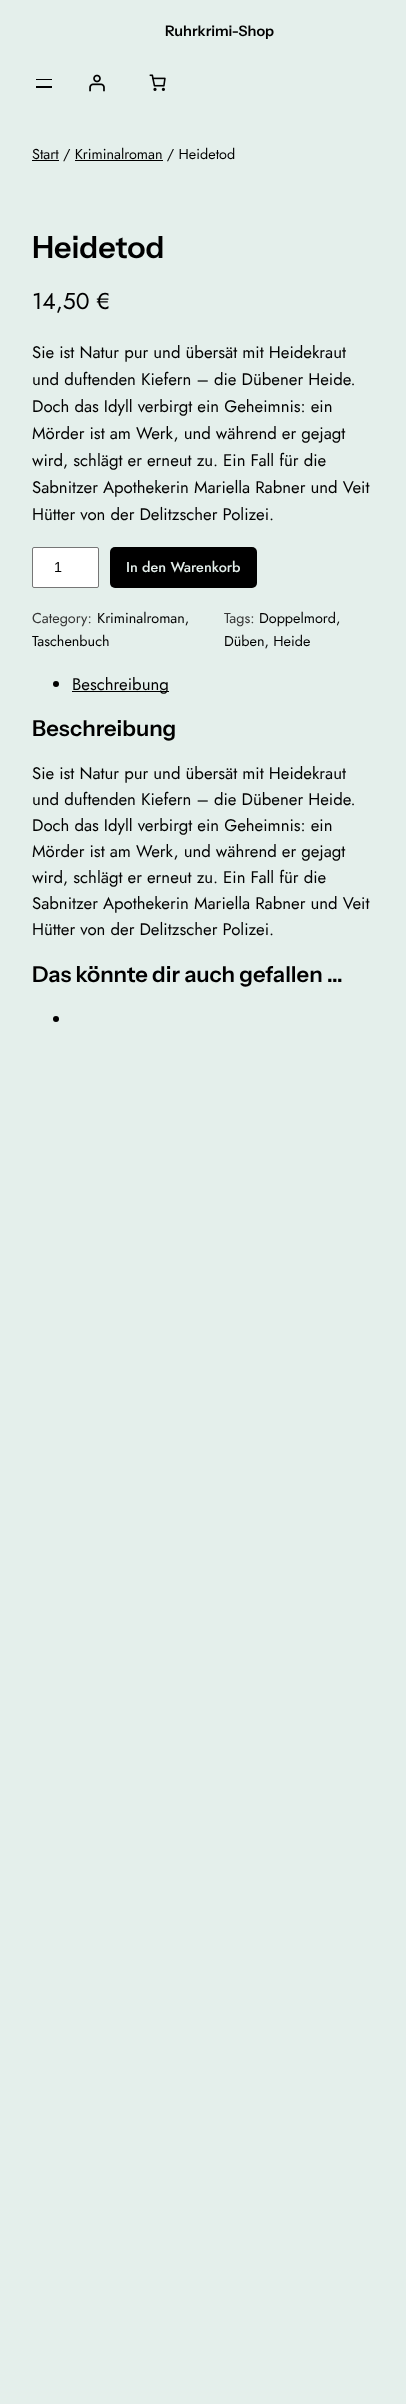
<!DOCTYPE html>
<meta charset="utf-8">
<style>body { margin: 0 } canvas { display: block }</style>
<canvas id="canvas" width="406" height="2404"></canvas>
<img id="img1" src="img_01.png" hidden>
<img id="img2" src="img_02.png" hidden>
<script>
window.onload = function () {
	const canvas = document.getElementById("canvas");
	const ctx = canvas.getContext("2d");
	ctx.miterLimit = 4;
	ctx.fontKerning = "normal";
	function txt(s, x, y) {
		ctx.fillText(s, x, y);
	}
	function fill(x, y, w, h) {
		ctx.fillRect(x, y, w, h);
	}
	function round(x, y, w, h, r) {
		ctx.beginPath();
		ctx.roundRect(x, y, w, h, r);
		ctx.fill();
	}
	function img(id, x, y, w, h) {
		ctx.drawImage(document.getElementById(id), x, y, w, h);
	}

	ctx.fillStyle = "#E4EFEB";
	fill(0, 0, 406, 2404);
	ctx.fillStyle = "#000000";
	fill(36, 79, 16, 1);
	fill(36, 86, 16, 2);
	img("img1", 89, 74, 16, 18);
	img("img2", 149, 74, 17, 17);
	fill(32, 160, 27, 1);
	fill(75, 160, 88, 1);
	ctx.fillStyle = "#FFFFFF";
	ctx.beginPath();
	ctx.roundRect(32.5, 547.5, 66, 40, 1.5);
	ctx.fill();
	ctx.strokeStyle = "#767676";
	ctx.stroke();
	ctx.fillStyle = "#000000";
	round(110, 547, 147, 41, 5);
	ctx.beginPath();
	ctx.arc(56, 684, 3, 0, Math.PI * 2);
	ctx.fill();
	fill(72, 691, 97, 1);
	ctx.beginPath();
	ctx.arc(56, 1019, 3, 0, Math.PI * 2);
	ctx.fill();
	ctx.font = "600 14.5px Instrument Sans";
	txt("Ruhrkrimi-Shop", 165, 36);
	ctx.font = "14.4px Jost";
	txt("Start / Kriminalroman / Heidetod", 32, 159);
	ctx.font = "600 30.5px Instrument Sans";
	txt("Heidetod", 32, 258);
	ctx.font = "23px Jost";
	txt("14,50 €", 32, 309);
	ctx.font = "16.8px Jost";
	txt("Sie ist Natur pur und übersät mit Heidekraut", 32, 358);
	txt("und duftenden Kiefern – die Dübener Heide.", 32, 385);
	txt("Doch das Idyll verbirgt ein Geheimnis: ein", 32, 412);
	txt("Mörder ist am Werk, und während er gejagt", 32, 439);
	txt("wird, schlägt er erneut zu. Ein Fall für die", 32, 466);
	txt("Sabnitzer Apothekerin Mariella Rabner und Veit", 32, 493);
	txt("Hütter von der Delitzscher Polizei.", 32, 520);
	ctx.font = "14.4px Liberation Sans";
	txt("1", 54, 572);
	ctx.font = "500 14.4px Jost";
	ctx.fillStyle = "#E4EFEB";
	txt("In den Warenkorb", 126, 572);
	ctx.font = "14.4px Jost";
	ctx.fillStyle = "#353535";
	txt("Category:", 32, 623);
	ctx.fillStyle = "#000000";
	txt("Kriminalroman,", 97, 623);
	txt("Taschenbuch", 32, 646);
	ctx.fillStyle = "#353535";
	txt("Tags:", 224, 623);
	ctx.fillStyle = "#000000";
	txt("Doppelmord,", 259, 623);
	txt("Düben, Heide", 224, 646);
	ctx.font = "16.8px Jost";
	txt("Beschreibung", 72, 690);
	ctx.font = "600 22px Instrument Sans";
	txt("Beschreibung", 32, 736);
	ctx.font = "16.8px Jost";
	txt("Sie ist Natur pur und übersät mit Heidekraut", 32, 779);
	txt("und duftenden Kiefern – die Dübener Heide.", 32, 805);
	txt("Doch das Idyll verbirgt ein Geheimnis: ein", 32, 831);
	txt("Mörder ist am Werk, und während er gejagt", 32, 857);
	txt("wird, schlägt er erneut zu. Ein Fall für die", 32, 883);
	txt("Sabnitzer Apothekerin Mariella Rabner und Veit", 32, 909);
	txt("Hütter von der Delitzscher Polizei.", 32, 935);
	ctx.font = "600 22px Instrument Sans";
	txt("Das könnte dir auch gefallen …", 32, 982);
};
</script>
